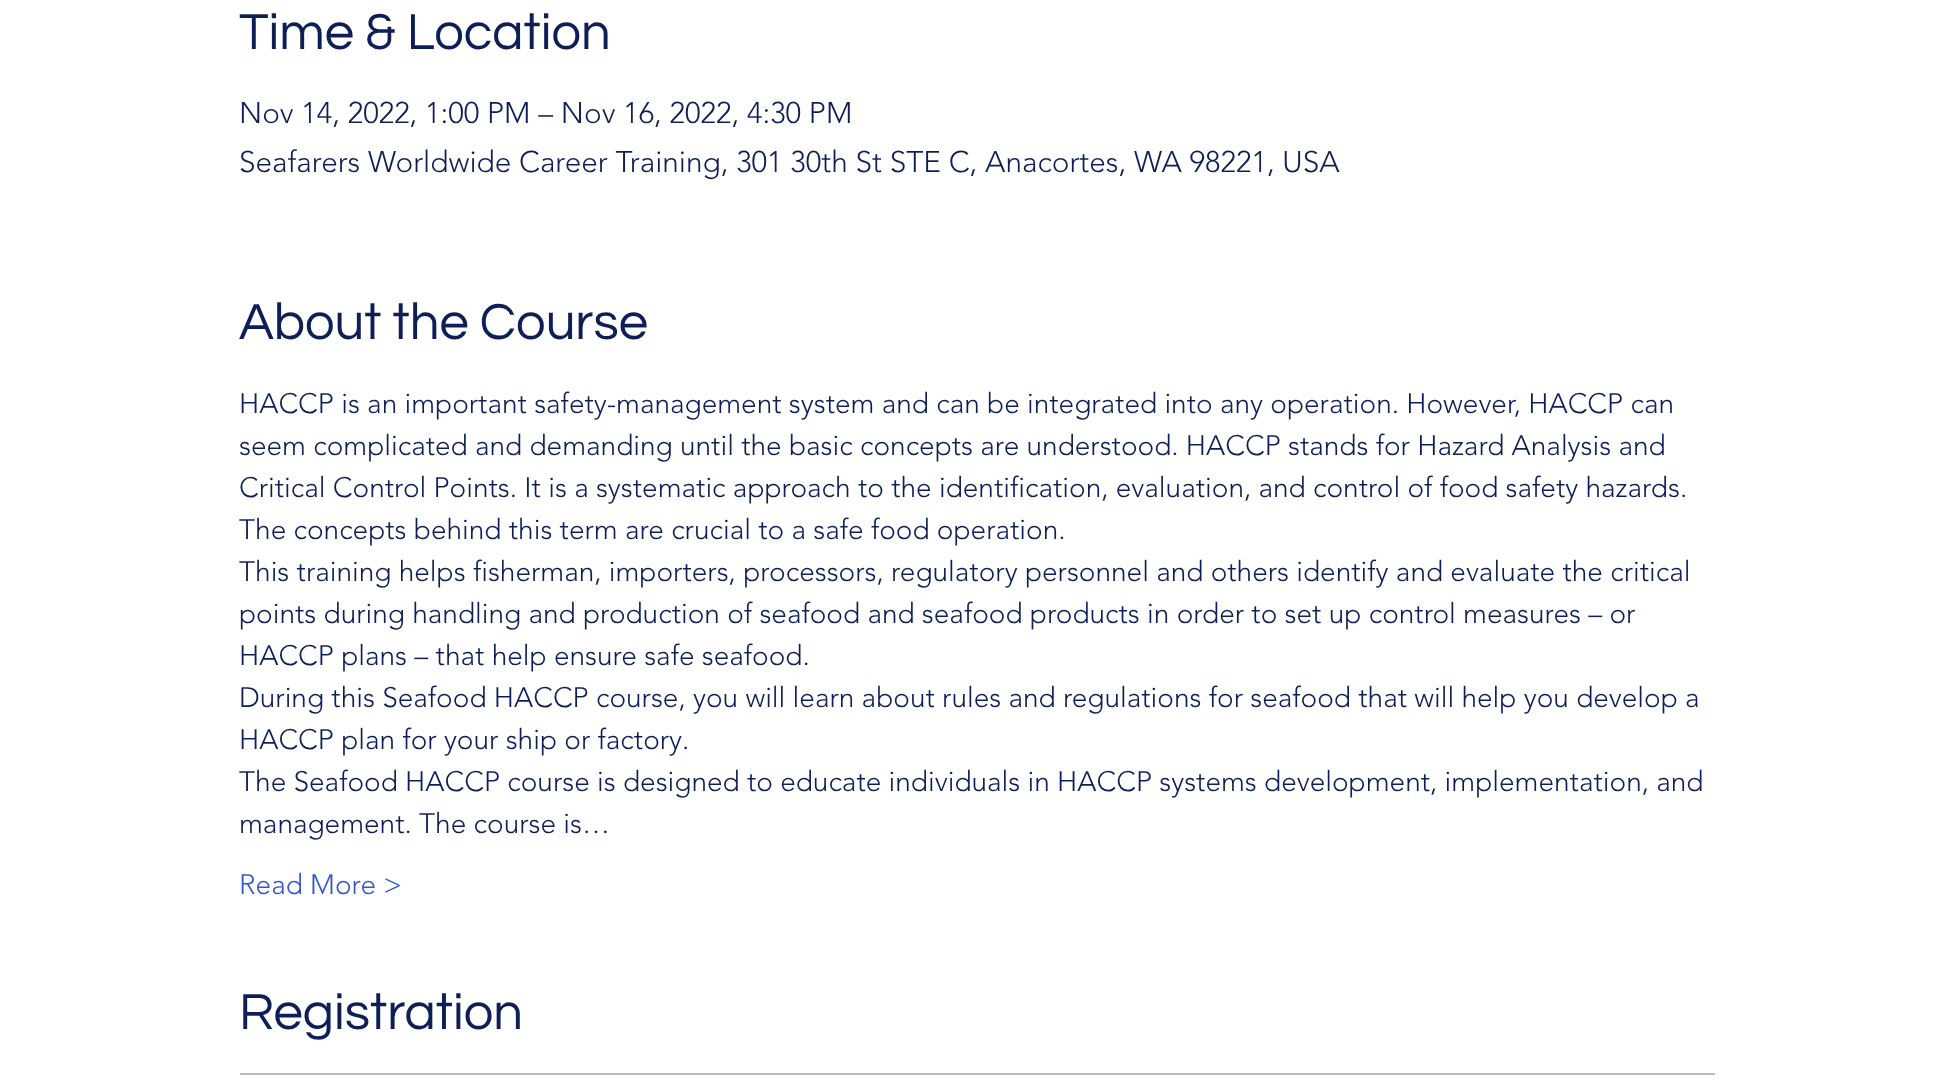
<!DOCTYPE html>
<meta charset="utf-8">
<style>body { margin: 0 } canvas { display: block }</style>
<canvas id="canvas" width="1952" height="1083"></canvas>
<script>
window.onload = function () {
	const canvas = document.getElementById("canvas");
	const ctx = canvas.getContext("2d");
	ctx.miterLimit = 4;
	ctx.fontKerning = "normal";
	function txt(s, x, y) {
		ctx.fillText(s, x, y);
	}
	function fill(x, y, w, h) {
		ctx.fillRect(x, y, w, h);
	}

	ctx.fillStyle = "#FFFFFF";
	fill(0, 0, 1952, 1083);
	ctx.fillStyle = "#B7BCCD";
	fill(240, 1073, 1475, 2);
	ctx.font = "52.5px Questrial";
	ctx.fillStyle = "#0E1F58";
	txt("Time & Location", 239, 49);
	ctx.font = "300 29.75px 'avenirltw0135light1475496'";
	txt("Nov 14, 2022, 1:00 PM – Nov 16, 2022, 4:30 PM", 239, 123);
	txt("Seafarers Worldwide Career Training, 301 30th St STE C, Anacortes, WA 98221, USA", 239, 172);
	ctx.font = "52.5px Questrial";
	txt("About the Course", 239, 339);
	ctx.font = "300 28px 'avenirltw0135light1475496'";
	txt("HACCP is an important safety-management system and can be integrated into any operation. However, HACCP can", 239, 413);
	txt("seem complicated and demanding until the basic concepts are understood. HACCP stands for Hazard Analysis and", 239, 455);
	txt("Critical Control Points. It is a systematic approach to the identification, evaluation, and control of food safety hazards.", 239, 497);
	txt("The concepts behind this term are crucial to a safe food operation.", 239, 539);
	txt("This training helps fisherman, importers, processors, regulatory personnel and others identify and evaluate the critical", 239, 581);
	txt("points during handling and production of seafood and seafood products in order to set up control measures – or", 239, 623);
	txt("HACCP plans – that help ensure safe seafood.", 239, 665);
	txt("During this Seafood HACCP course, you will learn about rules and regulations for seafood that will help you develop a", 239, 707);
	txt("HACCP plan for your ship or factory.", 239, 749);
	txt("The Seafood HACCP course is designed to educate individuals in HACCP systems development, implementation, and", 239, 791);
	txt("management. The course is…", 239, 833);
	ctx.fillStyle = "#3356CC";
	txt("Read More >", 239, 894);
	ctx.font = "52.5px Questrial";
	ctx.fillStyle = "#0E1F58";
	txt("Registration", 239, 1029);
};
</script>
